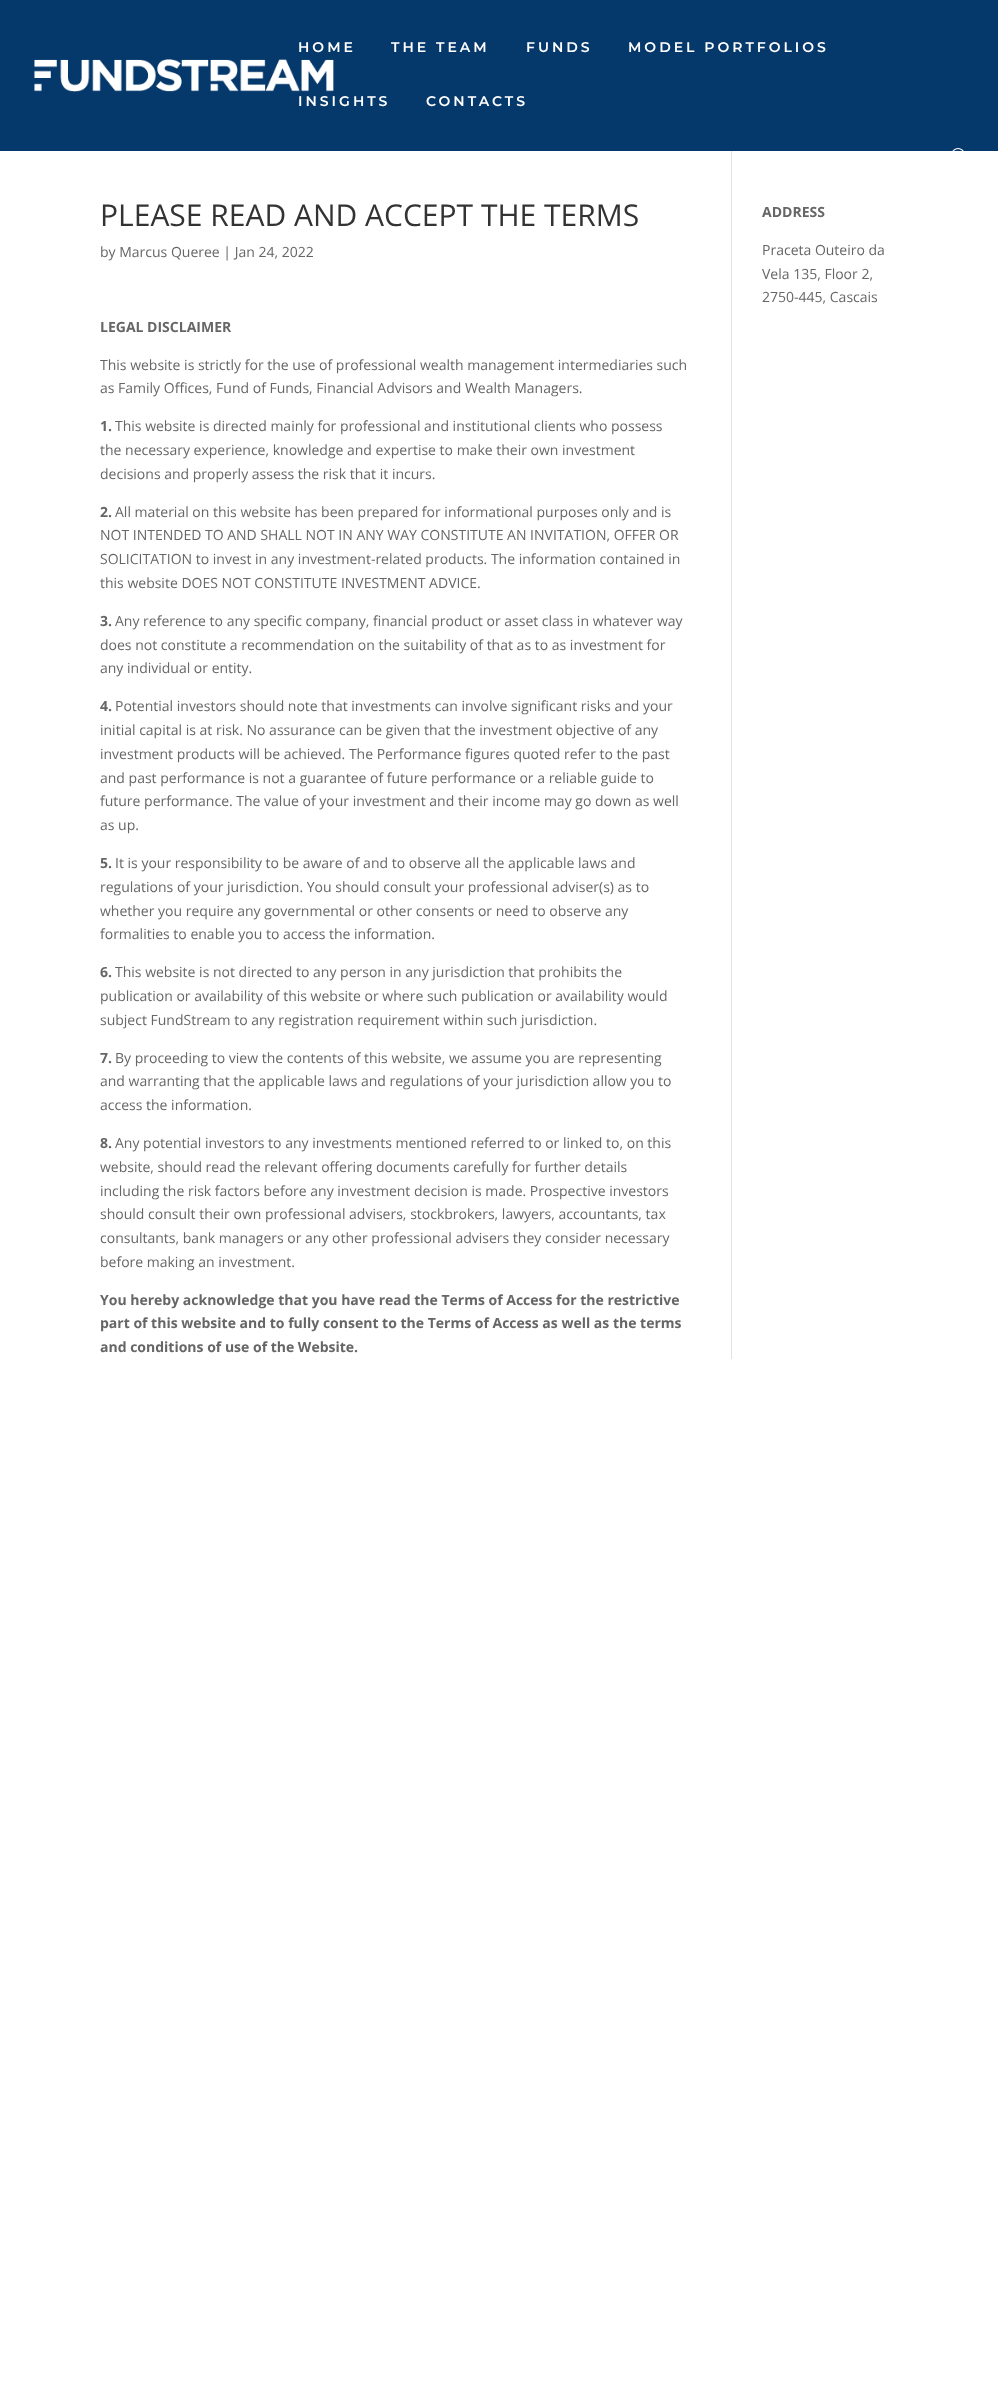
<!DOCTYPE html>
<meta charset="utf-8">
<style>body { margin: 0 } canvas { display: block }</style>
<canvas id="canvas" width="998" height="2389"></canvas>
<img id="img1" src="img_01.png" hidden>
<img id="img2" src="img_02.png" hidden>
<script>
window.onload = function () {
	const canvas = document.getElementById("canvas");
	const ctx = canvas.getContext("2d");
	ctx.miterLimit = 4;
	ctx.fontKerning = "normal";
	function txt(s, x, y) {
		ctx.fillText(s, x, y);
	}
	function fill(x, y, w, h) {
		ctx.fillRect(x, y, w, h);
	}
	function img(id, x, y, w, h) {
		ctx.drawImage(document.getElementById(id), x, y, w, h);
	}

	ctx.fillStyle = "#FFFFFF";
	fill(0, 0, 998, 2389);
	ctx.fillStyle = "#05386B";
	fill(0, 0, 998, 151);
	img("img1", 34, 59, 300, 33);
	img("img2", 952, 148, 12, 3);
	ctx.fillStyle = "#E2E2E2";
	fill(731, 151, 1, 1208);
	ctx.letterSpacing = "3px";
	ctx.font = "100 14px Montserrat";
	ctx.fillStyle = "#FFFFFF";
	txt("HOME", 298, 52);
	txt("THE TEAM", 391, 52);
	txt("FUNDS", 526, 52);
	txt("MODEL PORTFOLIOS", 628, 52);
	txt("INSIGHTS", 298, 106);
	txt("CONTACTS", 426, 106);
	ctx.letterSpacing = "0px";
	ctx.font = "30px Open Sans";
	ctx.fillStyle = "#333333";
	txt("PLEASE READ AND ACCEPT THE TERMS", 100, 226);
	ctx.font = "14px Open Sans";
	ctx.fillStyle = "#666666";
	txt("by Marcus Queree | Jan 24, 2022", 100, 257);
	ctx.font = "bold 14px Open Sans";
	txt("LEGAL DISCLAIMER", 100, 332);
	ctx.font = "14px Open Sans";
	txt("This website is strictly for the use of professional wealth management intermediaries such", 100, 370);
	txt("as Family Offices, Fund of Funds, Financial Advisors and Wealth Managers.", 100, 393);
	ctx.font = "bold 14px Open Sans";
	txt("1.", 100, 431);
	ctx.font = "14px Open Sans";
	txt("This website is directed mainly for professional and institutional clients who possess", 115, 431);
	txt("the necessary experience, knowledge and expertise to make their own investment", 100, 455);
	txt("decisions and properly assess the risk that it incurs.", 100, 479);
	ctx.font = "bold 14px Open Sans";
	txt("2.", 100, 517);
	ctx.font = "14px Open Sans";
	txt("All material on this website has been prepared for informational purposes only and is", 115, 517);
	txt("NOT INTENDED TO AND SHALL NOT IN ANY WAY CONSTITUTE AN INVITATION, OFFER OR", 100, 540);
	txt("SOLICITATION to invest in any investment-related products. The information contained in", 100, 564);
	txt("this website DOES NOT CONSTITUTE INVESTMENT ADVICE.", 100, 588);
	ctx.font = "bold 14px Open Sans";
	txt("3.", 100, 626);
	ctx.font = "14px Open Sans";
	txt("Any reference to any specific company, financial product or asset class in whatever way", 115, 626);
	txt("does not constitute a recommendation on the suitability of that as to as investment for", 100, 650);
	txt("any individual or entity.", 100, 673);
	ctx.font = "bold 14px Open Sans";
	txt("4.", 100, 711);
	ctx.font = "14px Open Sans";
	txt("Potential investors should note that investments can involve significant risks and your", 115, 711);
	txt("initial capital is at risk. No assurance can be given that the investment objective of any", 100, 735);
	txt("investment products will be achieved. The Performance figures quoted refer to the past", 100, 759);
	txt("and past performance is not a guarantee of future performance or a reliable guide to", 100, 783);
	txt("future performance. The value of your investment and their income may go down as well", 100, 806);
	txt("as up.", 100, 830);
	ctx.font = "bold 14px Open Sans";
	txt("5.", 100, 868);
	ctx.font = "14px Open Sans";
	txt("It is your responsibility to be aware of and to observe all the applicable laws and", 115, 868);
	txt("regulations of your jurisdiction. You should consult your professional adviser(s) as to", 100, 892);
	txt("whether you require any governmental or other consents or need to observe any", 100, 916);
	txt("formalities to enable you to access the information.", 100, 939);
	ctx.font = "bold 14px Open Sans";
	txt("6.", 100, 977);
	ctx.font = "14px Open Sans";
	txt("This website is not directed to any person in any jurisdiction that prohibits the", 115, 977);
	txt("publication or availability of this website or where such publication or availability would", 100, 1001);
	txt("subject FundStream to any registration requirement within such jurisdiction.", 100, 1025);
	ctx.font = "bold 14px Open Sans";
	txt("7.", 100, 1063);
	ctx.font = "14px Open Sans";
	txt("By proceeding to view the contents of this website, we assume you are representing", 115, 1063);
	txt("and warranting that the applicable laws and regulations of your jurisdiction allow you to", 100, 1086);
	txt("access the information.", 100, 1110);
	ctx.font = "bold 14px Open Sans";
	txt("8.", 100, 1148);
	ctx.font = "14px Open Sans";
	txt("Any potential investors to any investments mentioned referred to or linked to, on this", 115, 1148);
	txt("website, should read the relevant offering documents carefully for further details", 100, 1172);
	txt("including the risk factors before any investment decision is made. Prospective investors", 100, 1196);
	txt("should consult their own professional advisers, stockbrokers, lawyers, accountants, tax", 100, 1219);
	txt("consultants, bank managers or any other professional advisers they consider necessary", 100, 1243);
	txt("before making an investment.", 100, 1267);
	ctx.font = "bold 14px Open Sans";
	txt("You hereby acknowledge that you have read the Terms of Access for the restrictive", 100, 1305);
	txt("part of this website and to fully consent to the Terms of Access as well as the terms", 100, 1328);
	txt("and conditions of use of the Website.", 100, 1352);
	txt("ADDRESS", 762, 217);
	ctx.font = "14px Open Sans";
	txt("Praceta Outeiro da", 762, 255);
	txt("Vela 135, Floor 2,", 762, 279);
	txt("2750-445, Cascais", 762, 302);
};
</script>
